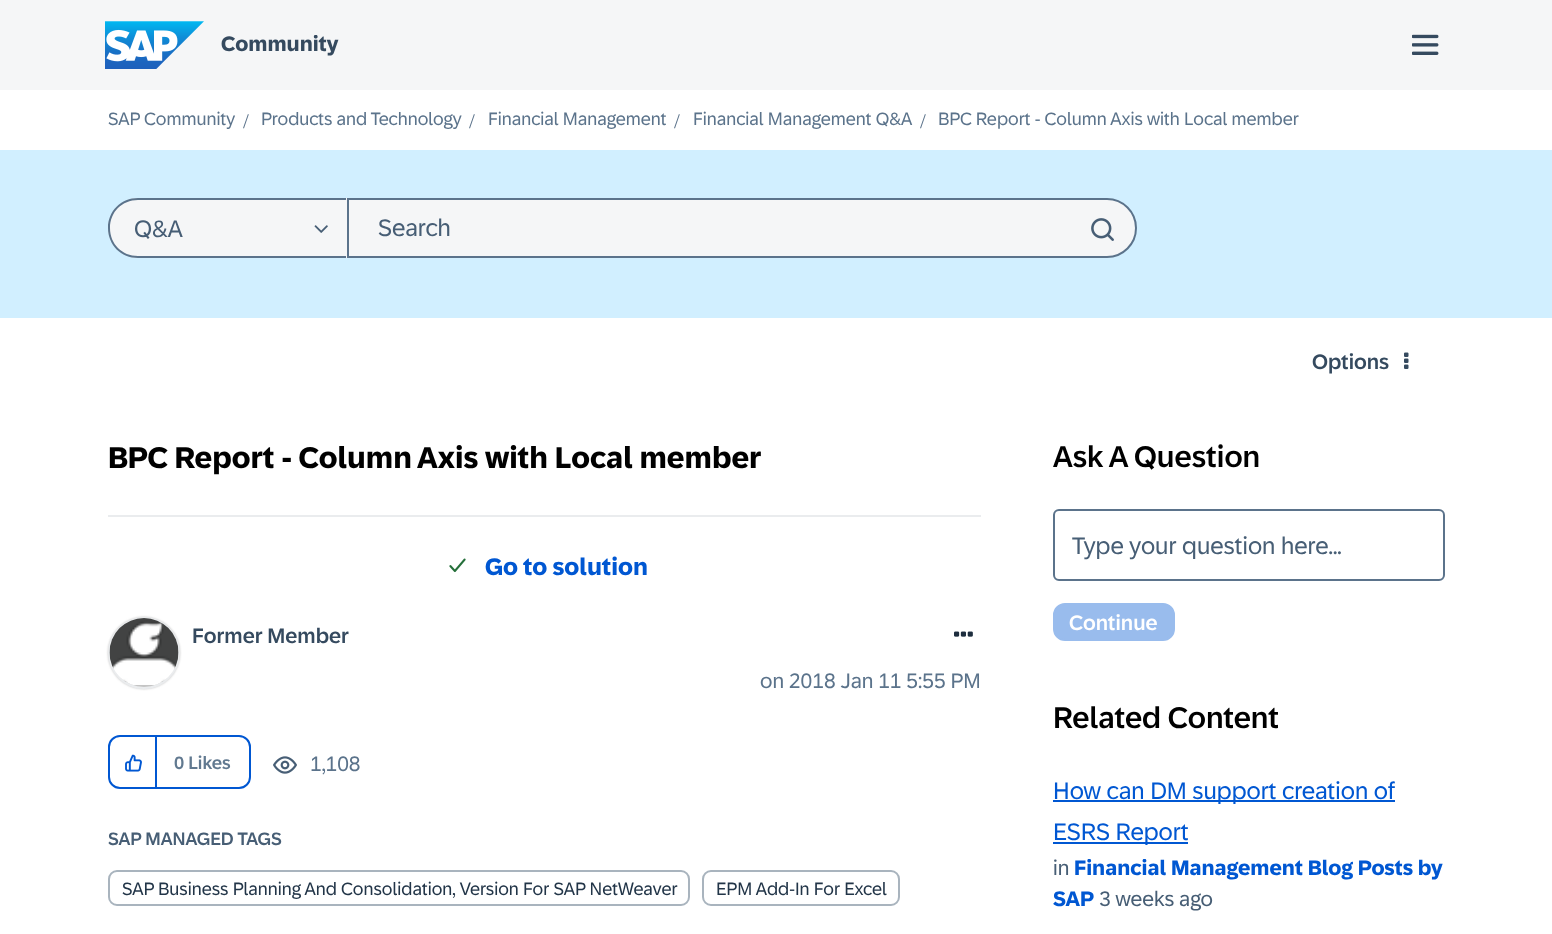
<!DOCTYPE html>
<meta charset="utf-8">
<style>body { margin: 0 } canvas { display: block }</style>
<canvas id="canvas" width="1552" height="934"></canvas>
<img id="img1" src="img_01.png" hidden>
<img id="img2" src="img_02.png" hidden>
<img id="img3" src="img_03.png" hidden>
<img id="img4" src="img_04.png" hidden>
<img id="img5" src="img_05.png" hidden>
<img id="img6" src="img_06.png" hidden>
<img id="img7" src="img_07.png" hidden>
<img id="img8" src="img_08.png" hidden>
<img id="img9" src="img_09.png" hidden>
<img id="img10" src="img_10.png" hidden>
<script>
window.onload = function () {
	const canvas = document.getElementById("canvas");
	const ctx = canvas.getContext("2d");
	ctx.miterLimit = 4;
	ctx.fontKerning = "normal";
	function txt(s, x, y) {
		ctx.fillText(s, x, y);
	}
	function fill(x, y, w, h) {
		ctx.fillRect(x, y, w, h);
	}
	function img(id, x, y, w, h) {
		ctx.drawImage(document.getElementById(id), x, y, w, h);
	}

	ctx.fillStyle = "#FFFFFF";
	fill(0, 0, 1552, 934);
	ctx.fillStyle = "#F5F6F7";
	fill(0, 0, 1552, 90);
	img("img1", 105, 21, 99, 48);
	img("img2", 1412, 34, 27, 21);
	ctx.fillStyle = "#D1EFFF";
	fill(0, 150, 1552, 168);
	ctx.fillStyle = "#F5F6F7";
	ctx.beginPath();
	ctx.roundRect(108, 198, 239, 60, [30, 0, 0, 30]);
	ctx.fill();
	ctx.fillStyle = "#5B738B";
	ctx.beginPath();
	ctx.moveTo(138, 198);
	ctx.lineTo(346, 198);
	ctx.lineTo(346, 258);
	ctx.lineTo(138, 258);
	ctx.bezierCurveTo(121, 258, 108, 245, 108, 228);
	ctx.bezierCurveTo(108, 211, 121, 198, 138, 198);
	ctx.closePath();
	ctx.moveTo(138, 200);
	ctx.lineTo(346, 200);
	ctx.lineTo(346, 256);
	ctx.lineTo(138, 256);
	ctx.bezierCurveTo(122, 256, 110, 244, 110, 228);
	ctx.bezierCurveTo(110, 212, 122, 200, 138, 200);
	ctx.closePath();
	ctx.fill("evenodd");
	img("img3", 314, 225, 14, 8);
	ctx.fillStyle = "#F5F6F7";
	ctx.beginPath();
	ctx.roundRect(348, 199, 788, 58, [0, 29, 29, 0]);
	ctx.fill();
	ctx.strokeStyle = "#5B738B";
	ctx.lineWidth = 2;
	ctx.stroke();
	img("img4", 1091, 218, 23, 23);
	img("img5", 1404, 352, 5, 17);
	ctx.fillStyle = "#EAECEE";
	fill(108, 515, 873, 2);
	img("img6", 449, 558, 17, 15);
	ctx.fillStyle = "#C4C4C4";
	ctx.filter = "blur(1px)";
	ctx.beginPath();
	ctx.roundRect(108, 617, 72, 72, 36);
	ctx.fill();
	ctx.filter = "none";
	ctx.beginPath();
	ctx.arc(144, 653, 35, 0, Math.PI * 2);
	ctx.strokeStyle = "#EAECEE";
	ctx.stroke();
	img("img7", 109, 618, 70, 67);
	img("img8", 954, 631, 19, 6);
	ctx.beginPath();
	ctx.roundRect(109, 736, 141, 52, 11);
	ctx.strokeStyle = "#0057D2";
	ctx.stroke();
	ctx.fillStyle = "#0057D2";
	fill(155, 737, 2, 52);
	img("img9", 125, 754, 17, 18);
	img("img10", 273, 756, 24, 18);
	ctx.beginPath();
	ctx.roundRect(109, 871, 580, 34, 8);
	ctx.strokeStyle = "#A9B4BE";
	ctx.stroke();
	ctx.beginPath();
	ctx.roundRect(703, 871, 196, 34, 8);
	ctx.stroke();
	ctx.beginPath();
	ctx.roundRect(1054, 510, 390, 70, 5);
	ctx.strokeStyle = "#5B738B";
	ctx.stroke();
	ctx.fillStyle = "#99BCED";
	ctx.beginPath();
	ctx.roundRect(1054, 604, 120, 36, 11);
	ctx.fill();
	ctx.strokeStyle = "#99BCED";
	ctx.stroke();
	ctx.fillStyle = "#0057D2";
	fill(1053, 800, 342, 2);
	fill(1053, 842, 135, 2);
	ctx.font = "bold 21px '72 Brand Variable'";
	ctx.fillStyle = "#354A5F";
	txt("Community", 221, 51);
	ctx.font = "18px '72 Brand Variable'";
	ctx.fillStyle = "#5B738B";
	txt("SAP Community", 108, 125);
	ctx.font = "21px Liberation Serif";
	txt("/", 243, 128);
	ctx.font = "18px '72 Brand Variable'";
	txt("Products and Technology", 261, 125);
	ctx.font = "21px Liberation Serif";
	txt("/", 469, 128);
	ctx.font = "18px '72 Brand Variable'";
	txt("Financial Management", 488, 125);
	ctx.font = "21px Liberation Serif";
	txt("/", 674, 128);
	ctx.font = "18px '72 Brand Variable'";
	txt("Financial Management Q&A", 693, 125);
	ctx.font = "21px Liberation Serif";
	txt("/", 920, 128);
	ctx.font = "18px '72 Brand Variable'";
	txt("BPC Report - Column Axis with Local member", 938, 125);
	ctx.font = "24px '72 Brand Variable'";
	ctx.fillStyle = "#475E75";
	txt("Q&A", 134, 237);
	txt("Search", 378, 236);
	ctx.font = "500 21px '72 Brand Variable'";
	ctx.fillStyle = "#354A5F";
	txt("Options", 1312, 369);
	ctx.font = "bold 30px '72 Brand Variable'";
	ctx.fillStyle = "#000000";
	txt("BPC Report - Column Axis with Local member", 108, 468);
	ctx.font = "bold 24px '72 Brand Variable'";
	ctx.fillStyle = "#0057D2";
	txt("Go to solution", 485, 575);
	ctx.font = "500 21px '72 Brand Variable'";
	ctx.fillStyle = "#354A5F";
	txt("Former Member", 192, 643);
	ctx.font = "21px '72 Brand Variable'";
	ctx.fillStyle = "#5B738B";
	txt("on 2018 Jan 11 5:55 PM", 760, 688);
	ctx.font = "500 18px '72 Brand Variable'";
	ctx.fillStyle = "#617990";
	txt("0 Likes", 174, 769);
	ctx.font = "21px '72 Brand Variable'";
	ctx.fillStyle = "#5B738B";
	txt("1,108", 310, 771);
	ctx.font = "500 18px '72 Brand Variable'";
	ctx.fillStyle = "#475E75";
	txt("SAP MANAGED TAGS", 108, 845);
	ctx.font = "18px '72 Brand Variable'";
	ctx.fillStyle = "#223548";
	txt("SAP Business Planning And Consolidation, Version For SAP NetWeaver", 122, 895);
	txt("EPM Add-In For Excel", 716, 895);
	ctx.font = "500 30px '72 Brand Variable'";
	ctx.fillStyle = "#000000";
	txt("Ask A Question", 1053, 467);
	ctx.font = "24px '72 Brand Variable'";
	ctx.fillStyle = "#475E75";
	txt("Type your question here...", 1072, 554);
	ctx.font = "500 21px '72 Brand Variable'";
	ctx.fillStyle = "#FFFFFF";
	txt("Continue", 1069, 630);
	ctx.font = "500 30px '72 Brand Variable'";
	ctx.fillStyle = "#000000";
	txt("Related Content", 1053, 728);
	ctx.font = "24px '72 Brand Variable'";
	ctx.fillStyle = "#0057D2";
	txt("How can DM support creation of", 1053, 799);
	txt("ESRS Report", 1053, 840);
	ctx.font = "21px '72 Brand Variable'";
	ctx.fillStyle = "#475E75";
	txt("in", 1053, 875);
	ctx.font = "bold 21px '72 Brand Variable'";
	ctx.fillStyle = "#0057D2";
	txt("Financial Management Blog Posts by", 1074, 875);
	txt("SAP", 1053, 906);
	ctx.font = "21px '72 Brand Variable'";
	ctx.fillStyle = "#475E75";
	txt("3 weeks ago", 1099, 906);
};
</script>
